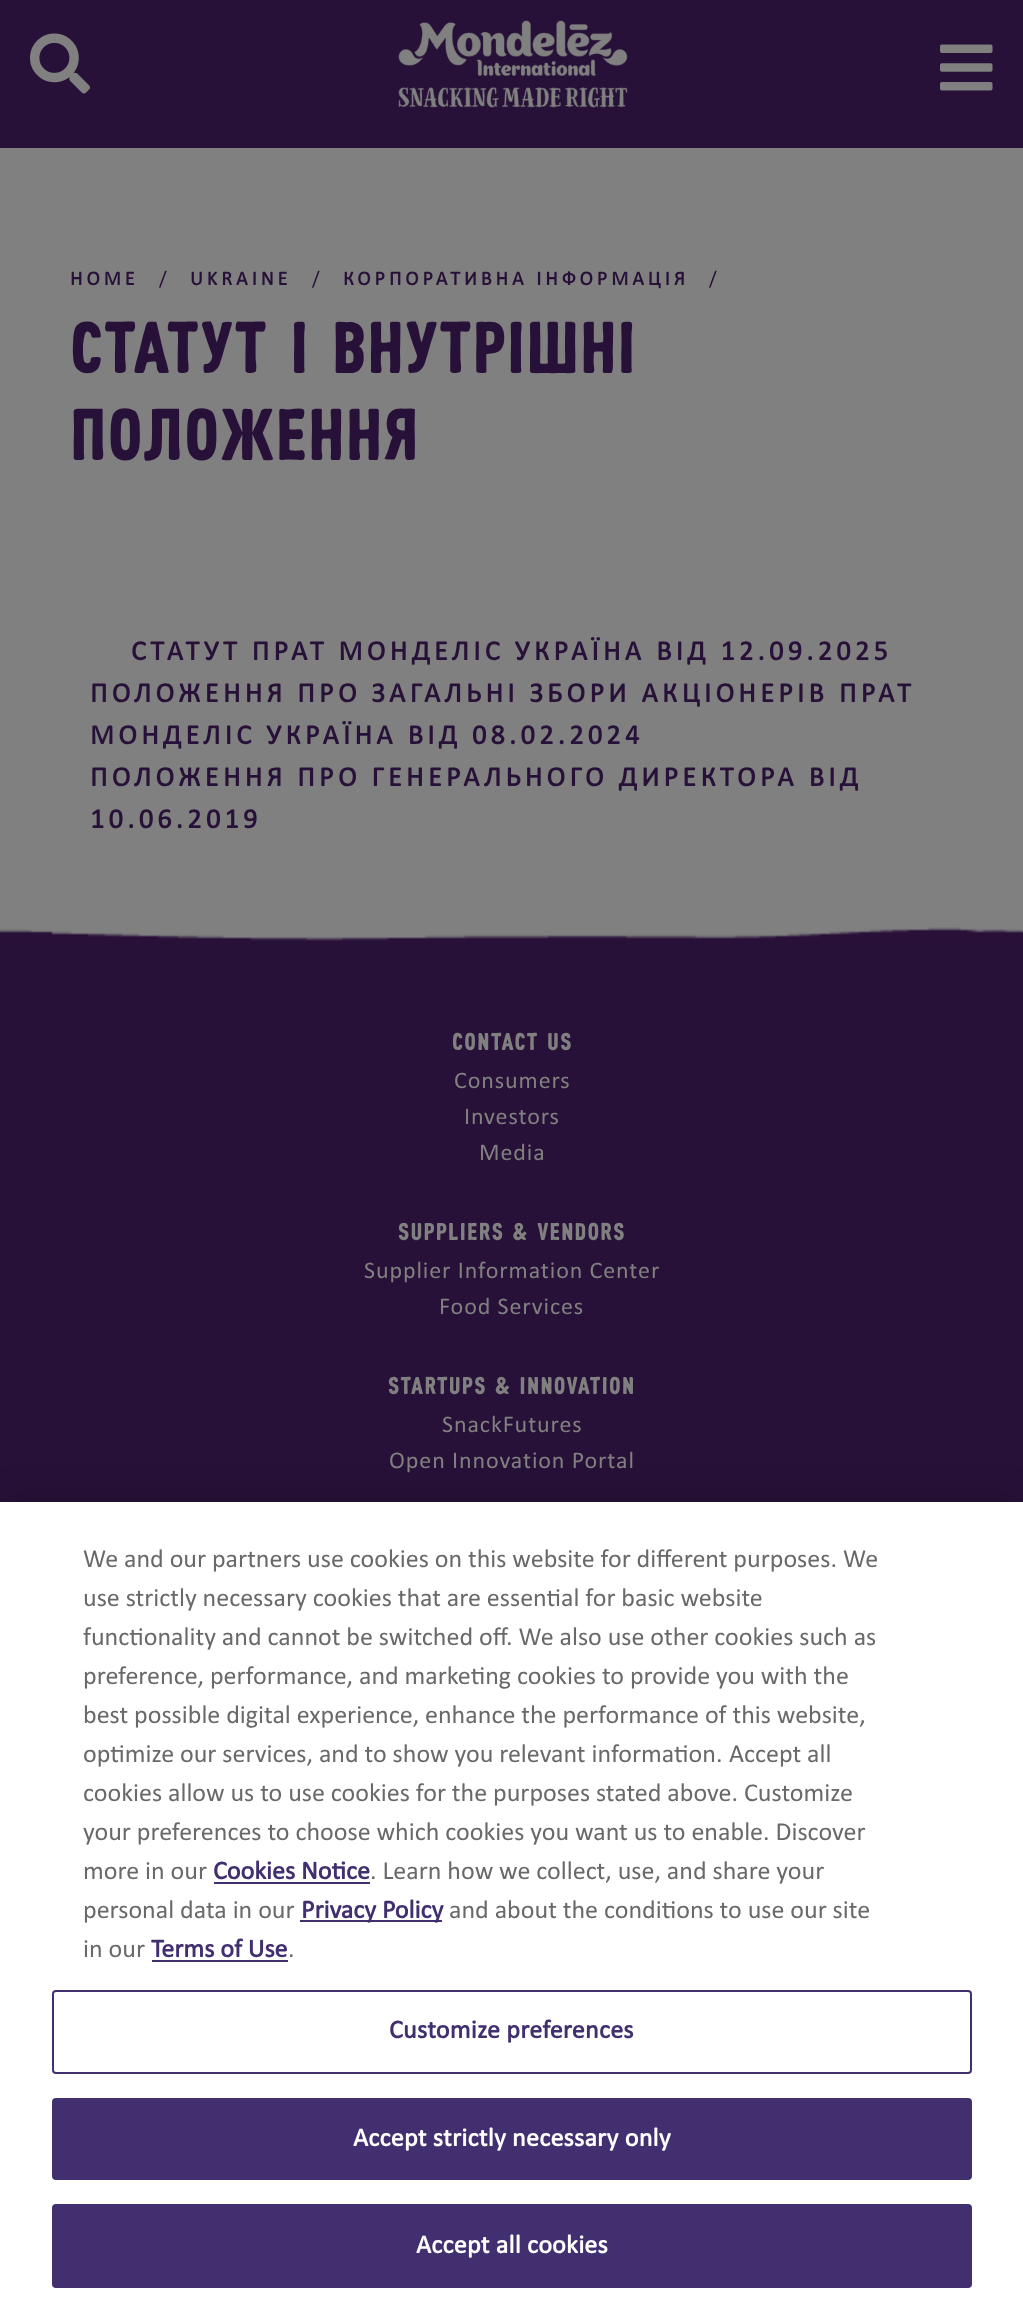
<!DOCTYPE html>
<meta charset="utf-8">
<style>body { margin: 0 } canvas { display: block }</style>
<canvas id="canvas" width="1023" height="2315"></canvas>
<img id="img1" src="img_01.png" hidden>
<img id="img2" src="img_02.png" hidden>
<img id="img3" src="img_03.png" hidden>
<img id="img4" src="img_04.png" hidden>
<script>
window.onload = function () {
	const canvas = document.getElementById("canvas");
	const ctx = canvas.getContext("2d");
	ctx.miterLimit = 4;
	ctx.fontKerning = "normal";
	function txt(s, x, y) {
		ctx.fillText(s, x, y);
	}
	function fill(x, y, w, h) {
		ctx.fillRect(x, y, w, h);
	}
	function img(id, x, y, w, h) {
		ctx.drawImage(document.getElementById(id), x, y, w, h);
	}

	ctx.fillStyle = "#808080";
	fill(0, 0, 1023, 2315);
	ctx.fillStyle = "#281138";
	fill(0, 0, 1023, 148);
	img("img1", 30, 33, 60, 61);
	img("img2", 398, 20, 230, 88);
	img("img3", 940, 44, 53, 47);
	fill(0, 942, 1023, 560);
	img("img4", 0, 927, 1023, 15);
	ctx.fillStyle = "rgba(0, 0, 0, 0.2)";
	ctx.filter = "blur(18px)";
	ctx.beginPath();
	ctx.rect(0, 1502, 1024, 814);
	ctx.fill();
	ctx.filter = "none";
	ctx.fillStyle = "#FFFFFF";
	fill(0, 1502, 1023, 813);
	ctx.fillStyle = "#412F70";
	fill(214, 1882, 156, 2);
	fill(300, 1920, 142, 2);
	fill(152, 1960, 136, 2);
	ctx.beginPath();
	ctx.roundRect(53, 1991, 918, 82, 3);
	ctx.strokeStyle = "#412F70";
	ctx.lineWidth = 2;
	ctx.stroke();
	ctx.beginPath();
	ctx.roundRect(53, 2099, 918, 80, 3);
	ctx.fill();
	ctx.stroke();
	ctx.beginPath();
	ctx.roundRect(53, 2205, 918, 82, 3);
	ctx.fill();
	ctx.stroke();
	ctx.letterSpacing = "4px";
	ctx.font = "bold 20px Calibri";
	ctx.fillStyle = "#281138";
	txt("HOME", 70, 285);
	ctx.font = "20px Calibri";
	txt("/", 159, 285);
	ctx.font = "bold 20px Calibri";
	txt("UKRAINE", 190, 285);
	ctx.font = "20px Calibri";
	txt("/", 312, 285);
	ctx.font = "bold 20px Calibri";
	txt("КОРПОРАТИВНА ІНФОРМАЦІЯ", 343, 285);
	ctx.font = "20px Calibri";
	txt("/", 709, 285);
	ctx.letterSpacing = "0.9px";
	ctx.font = "72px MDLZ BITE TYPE";
	txt("СТАТУТ І ВНУТРІШНІ", 70, 373);
	txt("ПОЛОЖЕННЯ", 70, 460);
	ctx.letterSpacing = "4.4px";
	ctx.font = "bold 28px Calibri";
	txt("СТАТУТ ПРАТ МОНДЕЛІС УКРАЇНА ВІД 12.09.2025", 131, 660);
	txt("ПОЛОЖЕННЯ ПРО ЗАГАЛЬНІ ЗБОРИ АКЦІОНЕРІВ ПРАТ", 90, 702);
	txt("МОНДЕЛІС УКРАЇНА ВІД 08.02.2024", 90, 744);
	txt("ПОЛОЖЕННЯ ПРО ГЕНЕРАЛЬНОГО ДИРЕКТОРА ВІД", 90, 786);
	txt("10.06.2019", 90, 828);
	ctx.letterSpacing = "1.2px";
	ctx.font = "24px MDLZ BITE TYPE";
	ctx.fillStyle = "#808080";
	txt("CONTACT US", 452, 1050);
	ctx.letterSpacing = "0.9px";
	ctx.font = "24px Calibri";
	txt("Consumers", 454, 1088);
	txt("Investors", 464, 1124);
	txt("Media", 479, 1160);
	ctx.letterSpacing = "1.2px";
	ctx.font = "24px MDLZ BITE TYPE";
	txt("SUPPLIERS & VENDORS", 398, 1240);
	ctx.letterSpacing = "0.9px";
	ctx.font = "24px Calibri";
	txt("Supplier Information Center", 364, 1278);
	txt("Food Services", 439, 1314);
	ctx.letterSpacing = "1.2px";
	ctx.font = "24px MDLZ BITE TYPE";
	txt("STARTUPS & INNOVATION", 388, 1394);
	ctx.letterSpacing = "0.9px";
	ctx.font = "24px Calibri";
	txt("SnackFutures", 442, 1432);
	txt("Open Innovation Portal", 389, 1468);
	ctx.letterSpacing = "0px";
	ctx.font = "26px Calibri";
	ctx.fillStyle = "#696969";
	txt("We and our partners use cookies on this website for different purposes.", 83, 1567);
	txt("We", 843, 1567);
	txt("use strictly necessary cookies that are essential for basic website", 83, 1606);
	txt("functionality and cannot be switched off. We also use other cookies such as", 83, 1645);
	txt("preference, performance, and marketing cookies to provide you with the", 83, 1684);
	txt("best possible digital experience, enhance the performance of this website,", 83, 1723);
	txt("optimize our services, and to show you relevant information.", 83, 1762);
	txt("Accept all", 729, 1762);
	txt("cookies allow us to use cookies for the purposes stated above.", 83, 1801);
	txt("Customize", 744, 1801);
	txt("your preferences to choose which cookies you want us to enable. Discover", 83, 1840);
	txt("more in our", 83, 1879);
	ctx.font = "bold 26px Calibri";
	ctx.fillStyle = "#412F70";
	txt("Cookies Notice", 213, 1879);
	ctx.font = "26px Calibri";
	ctx.fillStyle = "#696969";
	txt(". Learn how we collect, use, and share your", 370, 1879);
	txt("personal data in our", 83, 1918);
	ctx.font = "bold 26px Calibri";
	ctx.fillStyle = "#412F70";
	txt("Privacy Policy", 301, 1918);
	ctx.font = "26px Calibri";
	ctx.fillStyle = "#696969";
	txt("and about the conditions to use our site", 449, 1918);
	txt("in our", 83, 1957);
	ctx.font = "bold 26px Calibri";
	ctx.fillStyle = "#412F70";
	txt("Terms of Use", 151, 1957);
	ctx.font = "26px Calibri";
	ctx.fillStyle = "#696969";
	txt(".", 288, 1957);
	ctx.letterSpacing = "0.25px";
	ctx.font = "bold 26px Calibri";
	ctx.fillStyle = "#412F70";
	txt("Customize preferences", 389, 2038);
	ctx.fillStyle = "#FFFFFF";
	txt("Accept strictly necessary only", 353, 2146);
	txt("Accept all cookies", 416, 2253);
};
</script>
